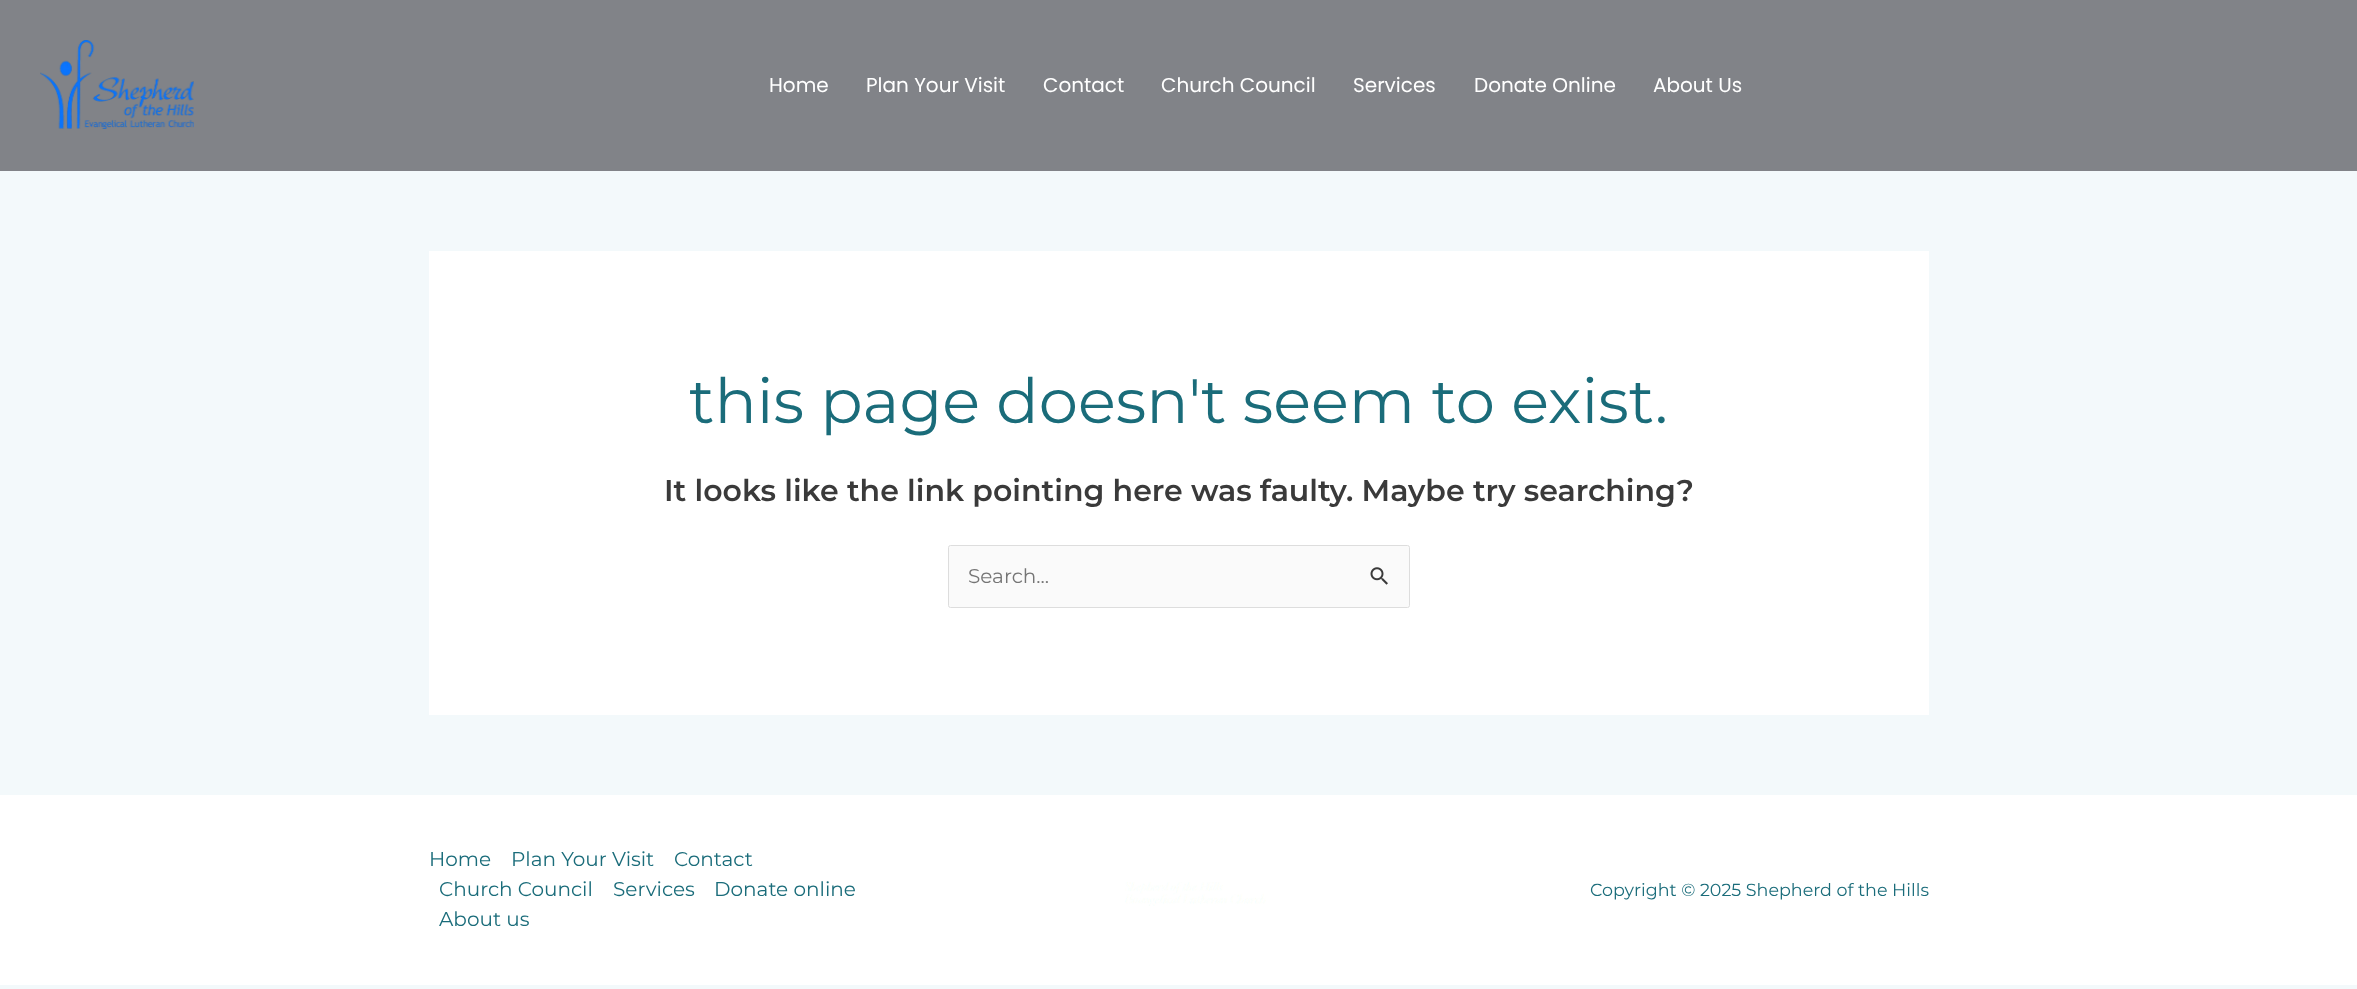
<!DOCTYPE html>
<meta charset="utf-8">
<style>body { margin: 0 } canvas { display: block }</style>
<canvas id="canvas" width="2357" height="989"></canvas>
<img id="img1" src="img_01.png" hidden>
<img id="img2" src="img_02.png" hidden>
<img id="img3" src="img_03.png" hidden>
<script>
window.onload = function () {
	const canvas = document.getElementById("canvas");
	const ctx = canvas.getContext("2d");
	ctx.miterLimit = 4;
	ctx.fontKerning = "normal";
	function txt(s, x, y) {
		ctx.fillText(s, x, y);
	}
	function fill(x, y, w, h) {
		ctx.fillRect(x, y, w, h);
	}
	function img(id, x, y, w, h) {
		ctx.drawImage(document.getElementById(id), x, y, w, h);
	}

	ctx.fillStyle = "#F3F9FB";
	fill(0, 0, 2357, 989);
	ctx.fillStyle = "#818388";
	fill(0, 0, 2357, 171);
	img("img1", 40, 40, 154, 89);
	ctx.fillStyle = "#FFFFFF";
	fill(429, 251, 1500, 464);
	ctx.fillStyle = "#FAFAFA";
	ctx.beginPath();
	ctx.roundRect(948.5, 545.5, 461, 62, 2);
	ctx.fill();
	ctx.strokeStyle = "#DDDDDD";
	ctx.stroke();
	img("img2", 1370, 567, 18, 18);
	ctx.fillStyle = "#FFFFFF";
	fill(0, 795, 2357, 190);
	img("img3", 1125, 882, 141, 24);
	ctx.font = "20px Poppins";
	txt("Home", 769, 92);
	txt("Plan Your Visit", 866, 92);
	txt("Contact", 1043, 92);
	txt("Church Council", 1161, 92);
	txt("Services", 1353, 92);
	txt("Donate Online", 1474, 92);
	txt("About Us", 1653, 92);
	ctx.font = "62.5px Montserrat";
	ctx.fillStyle = "#1A6C7A";
	txt("this page doesn't seem to exist.", 689, 423);
	ctx.font = "600 30px Montserrat";
	ctx.fillStyle = "#3A3A3A";
	txt("It looks like the link pointing here was faulty. Maybe try searching?", 664, 501);
	ctx.font = "20px Montserrat";
	ctx.fillStyle = "#757575";
	txt("Search...", 968, 583);
	ctx.fillStyle = "#1A6C7A";
	txt("Home", 429, 866);
	txt("Plan Your Visit", 511, 866);
	txt("Contact", 674, 866);
	txt("Church Council", 439, 896);
	txt("Services", 613, 896);
	txt("Donate online", 714, 896);
	txt("About us", 439, 926);
	ctx.font = "17.5px Montserrat";
	txt("Copyright © 2025 Shepherd of the Hills", 1590, 896);
};
</script>
